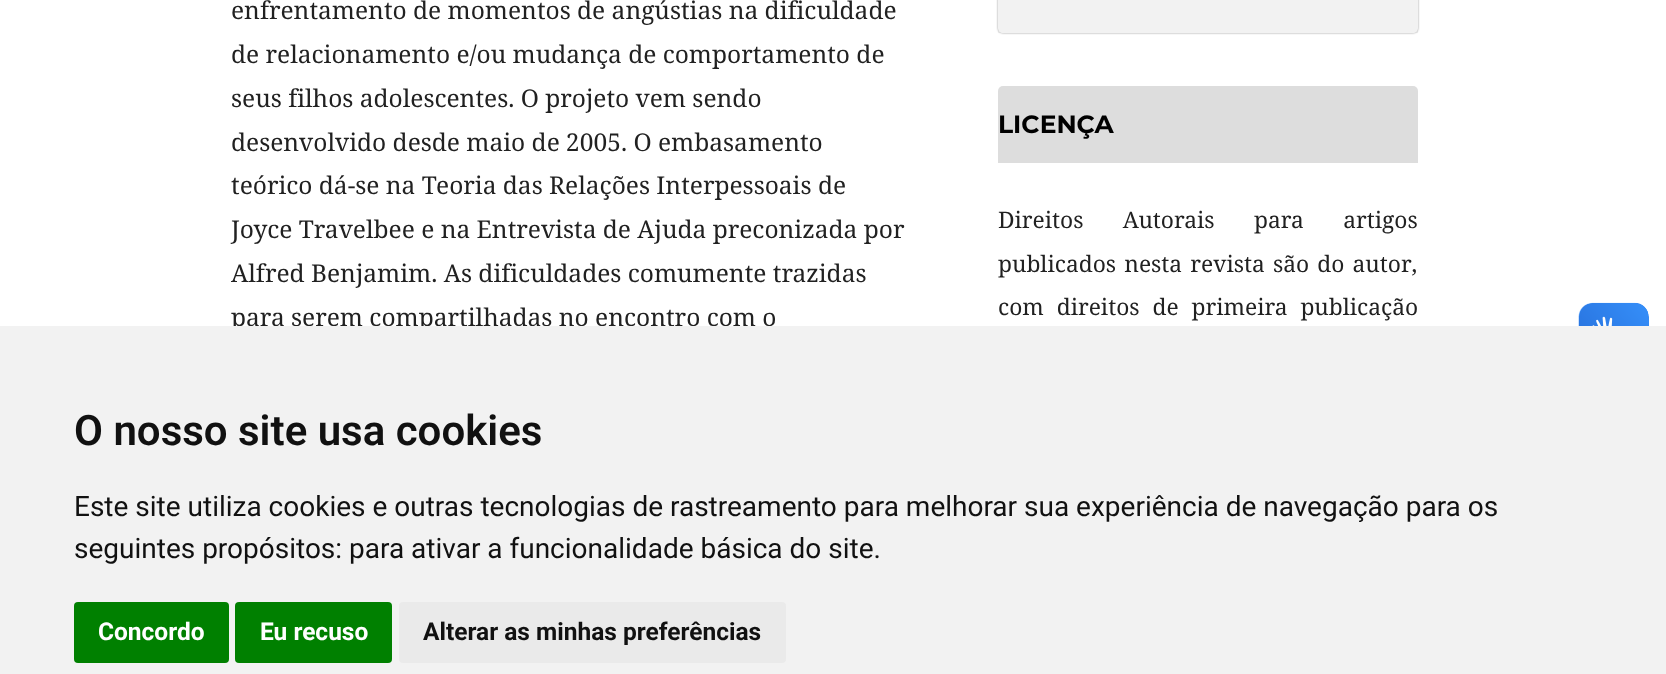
<!DOCTYPE html>
<meta charset="utf-8">
<style>body { margin: 0 } canvas { display: block }</style>
<canvas id="canvas" width="1666" height="674"></canvas>
<img id="img1" src="img_01.png" hidden>
<img id="img2" src="img_02.png" hidden>
<script>
window.onload = function () {
	const canvas = document.getElementById("canvas");
	const ctx = canvas.getContext("2d");
	ctx.miterLimit = 4;
	ctx.fontKerning = "normal";
	function txt(s, x, y) {
		ctx.fillText(s, x, y);
	}
	function fill(x, y, w, h) {
		ctx.fillRect(x, y, w, h);
	}
	function round(x, y, w, h, r) {
		ctx.beginPath();
		ctx.roundRect(x, y, w, h, r);
		ctx.fill();
	}
	function img(id, x, y, w, h) {
		ctx.drawImage(document.getElementById(id), x, y, w, h);
	}

	ctx.fillStyle = "#FFFFFF";
	fill(0, 0, 1666, 674);
	ctx.save();
	ctx.beginPath();
	ctx.moveTo(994, 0);
	ctx.lineTo(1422, 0);
	ctx.lineTo(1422, 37);
	ctx.lineTo(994, 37);
	ctx.closePath();
	ctx.moveTo(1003, -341);
	ctx.lineTo(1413, -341);
	ctx.bezierCurveTo(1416, -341, 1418, -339, 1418, -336);
	ctx.lineTo(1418, 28);
	ctx.bezierCurveTo(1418, 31, 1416, 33, 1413, 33);
	ctx.lineTo(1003, 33);
	ctx.bezierCurveTo(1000, 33, 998, 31, 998, 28);
	ctx.lineTo(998, -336);
	ctx.bezierCurveTo(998, -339, 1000, -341, 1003, -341);
	ctx.closePath();
	ctx.clip("evenodd");
	ctx.fillStyle = "rgba(0, 0, 0, 0.4)";
	ctx.filter = "blur(1px)";
	ctx.beginPath();
	ctx.roundRect(998, -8, 420, 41, 5);
	ctx.fill();
	ctx.filter = "none";
	ctx.restore();
	ctx.fillStyle = "rgba(0, 0, 0, 0.05)";
	fill(998, 0, 420, 33);
	ctx.fillStyle = "#DDDDDD";
	ctx.beginPath();
	ctx.roundRect(998, 86, 420, 77, [5, 5, 0, 0]);
	ctx.fill();
	img("img1", 1578, 302, 71, 24);
	img("img2", 1579, 303, 70, 23);
	ctx.font = "24.5px Noto Serif";
	ctx.fillStyle = "#212121";
	txt("enfrentamento de momentos de angústias na dificuldade", 231, 19);
	txt("de relacionamento e/ou mudança de comportamento de", 231, 63);
	txt("seus filhos adolescentes. O projeto vem sendo", 231, 107);
	txt("desenvolvido desde maio de 2005. O embasamento", 231, 151);
	txt("teórico dá-se na Teoria das Relações Interpessoais de", 231, 194);
	txt("Joyce Travelbee e na Entrevista de Ajuda preconizada por", 231, 238);
	txt("Alfred Benjamim. As dificuldades comumente trazidas", 231, 282);
	txt("para serem compartilhadas no encontro com o", 231, 326);
	ctx.font = "bold 25px Montserrat";
	ctx.fillStyle = "#000000";
	txt("LICENÇA", 998, 133);
	ctx.wordSpacing = "33.5px";
	ctx.font = "22.75px Noto Serif";
	ctx.fillStyle = "#212121";
	txt("Direitos Autorais para artigos", 998, 228);
	ctx.wordSpacing = "2.25px";
	txt("publicados nesta revista são do autor,", 998, 272);
	ctx.wordSpacing = "7px";
	txt("com direitos de primeira publicação", 998, 315);
	ctx.fillStyle = "#F2F2F2";
	fill(0, 326, 1666, 348);
	ctx.wordSpacing = "0px";
	ctx.font = "600 42px Roboto";
	ctx.fillStyle = "#111111";
	txt("O nosso site usa cookies", 74, 445);
	ctx.font = "28px Roboto";
	txt("Este site utiliza cookies e outras tecnologias de rastreamento para melhorar sua experiência de navegação para os", 74, 516);
	txt("seguintes propósitos: para ativar a funcionalidade básica do site.", 74, 558);
	ctx.fillStyle = "#008000";
	round(74, 602, 155, 61, 4);
	ctx.font = "bold 24.5px Roboto";
	ctx.fillStyle = "#FFFFFF";
	txt("Concordo", 98, 640);
	ctx.fillStyle = "#008000";
	round(235, 602, 157, 61, 4);
	ctx.fillStyle = "#FFFFFF";
	txt("Eu recuso", 260, 640);
	ctx.fillStyle = "#EAEAEA";
	round(399, 602, 387, 61, 4);
	ctx.fillStyle = "#111111";
	txt("Alterar as minhas preferências", 423, 640);
};
</script>
